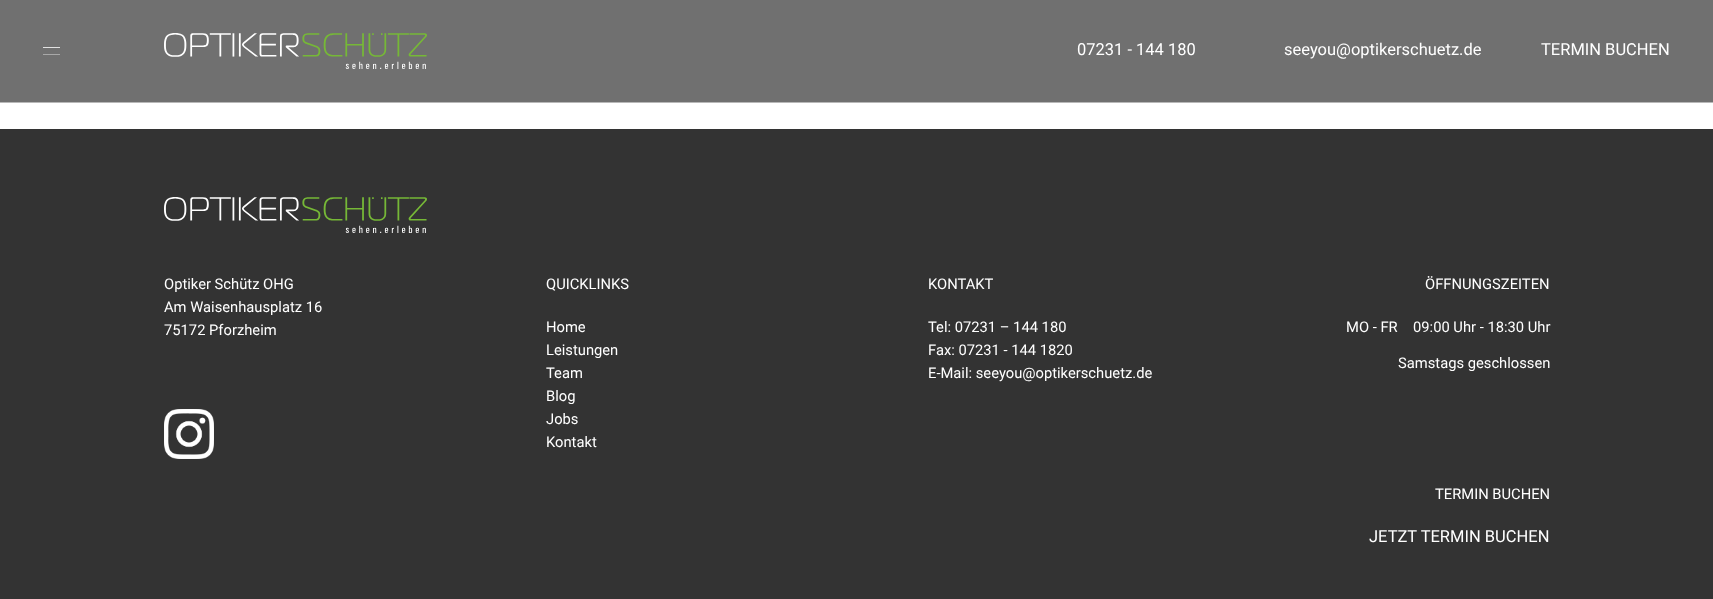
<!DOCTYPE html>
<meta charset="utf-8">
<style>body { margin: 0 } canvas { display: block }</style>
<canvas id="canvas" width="1713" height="599"></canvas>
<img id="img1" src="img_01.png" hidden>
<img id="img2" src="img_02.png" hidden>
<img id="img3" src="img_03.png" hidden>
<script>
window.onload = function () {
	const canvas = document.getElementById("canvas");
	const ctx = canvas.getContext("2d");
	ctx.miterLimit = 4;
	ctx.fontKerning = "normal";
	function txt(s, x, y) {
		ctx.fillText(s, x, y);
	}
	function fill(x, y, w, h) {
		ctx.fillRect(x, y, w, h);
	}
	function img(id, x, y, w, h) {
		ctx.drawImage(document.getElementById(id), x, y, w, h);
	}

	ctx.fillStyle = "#FFFFFF";
	fill(0, 0, 1713, 599);
	ctx.fillStyle = "#707070";
	fill(0, 0, 1713, 102);
	ctx.fillStyle = "#B8B8B8";
	fill(0, 102, 1713, 1);
	ctx.fillStyle = "#E2E2E2";
	fill(43, 47, 17, 1);
	ctx.save();
	ctx.beginPath();
	ctx.rect(43, 47, 17, 8);
	ctx.clip();
	ctx.beginPath();
	ctx.moveTo(43, 55);
	ctx.lineTo(60.5, 55);
	ctx.strokeStyle = "#FFFFFF";
	ctx.lineWidth = 0.8;
	ctx.stroke();
	ctx.restore();
	img("img1", 164, 33, 263, 36);
	ctx.fillStyle = "#333333";
	fill(0, 129, 1713, 470);
	img("img2", 164, 197, 263, 36);
	img("img3", 164, 409, 50, 50);
	ctx.font = "16.5px Roboto";
	ctx.fillStyle = "#FFFFFF";
	txt("07231 - 144 180", 1077, 55);
	txt("seeyou@optikerschuetz.de", 1284, 55);
	txt("TERMIN BUCHEN", 1541, 55);
	ctx.font = "14.75px Roboto";
	txt("Optiker Schütz OHG", 164, 289);
	txt("Am Waisenhausplatz 16", 164, 312);
	txt("75172 Pforzheim", 164, 335);
	txt("QUICKLINKS", 546, 289);
	txt("Home", 546, 332);
	txt("Leistungen", 546, 355);
	txt("Team", 546, 378);
	txt("Blog", 546, 401);
	txt("Jobs", 546, 424);
	txt("Kontakt", 546, 447);
	txt("KONTAKT", 928, 289);
	txt("Tel: 07231 – 144 180", 928, 332);
	txt("Fax: 07231 - 144 1820", 928, 355);
	txt("E-Mail: seeyou@optikerschuetz.de", 928, 378);
	txt("ÖFFNUNGSZEITEN", 1425, 289);
	txt("MO - FR", 1346, 332);
	txt("09:00 Uhr - 18:30 Uhr", 1413, 332);
	txt("Samstags geschlossen", 1398, 368);
	txt("TERMIN BUCHEN", 1435, 499);
	ctx.font = "16.5px Roboto";
	txt("JETZT TERMIN BUCHEN", 1369, 542);
};
</script>
